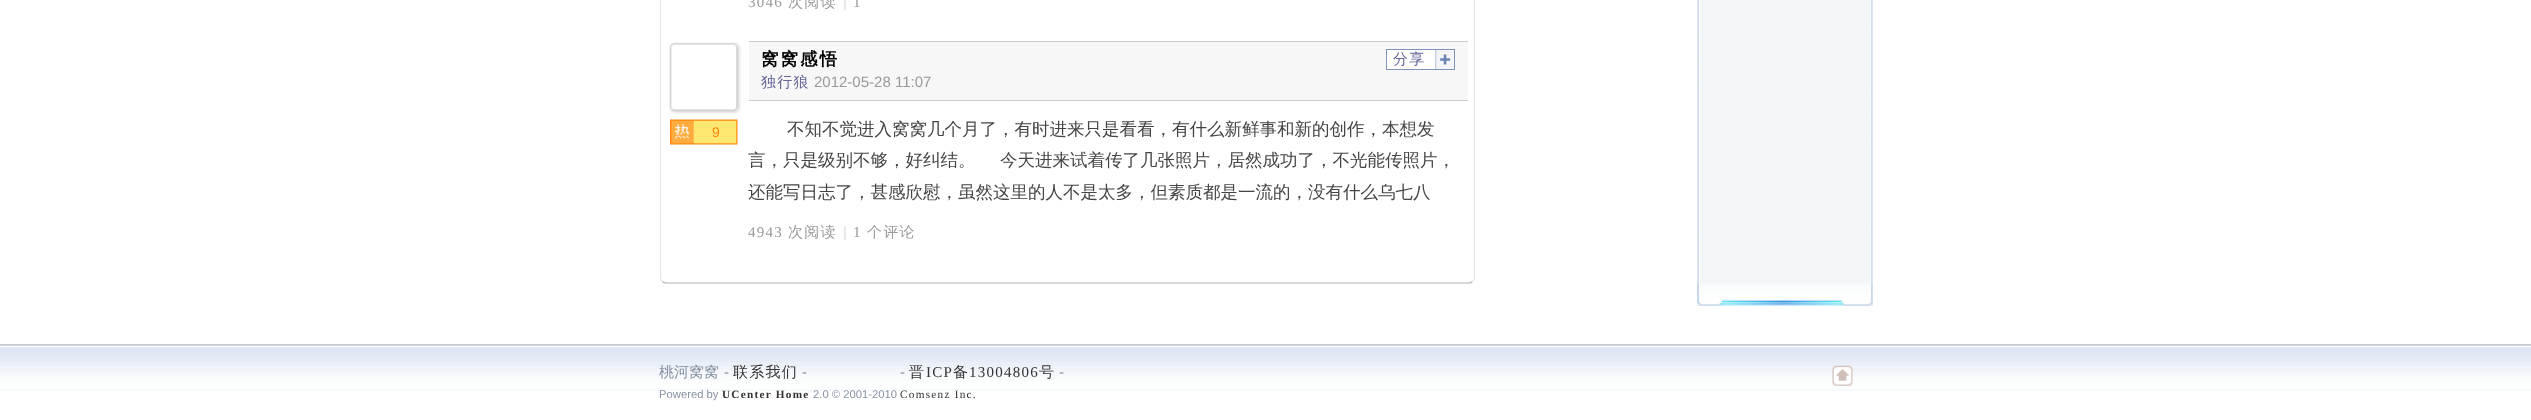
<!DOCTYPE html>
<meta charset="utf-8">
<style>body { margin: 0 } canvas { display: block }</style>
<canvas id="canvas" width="2531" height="420"></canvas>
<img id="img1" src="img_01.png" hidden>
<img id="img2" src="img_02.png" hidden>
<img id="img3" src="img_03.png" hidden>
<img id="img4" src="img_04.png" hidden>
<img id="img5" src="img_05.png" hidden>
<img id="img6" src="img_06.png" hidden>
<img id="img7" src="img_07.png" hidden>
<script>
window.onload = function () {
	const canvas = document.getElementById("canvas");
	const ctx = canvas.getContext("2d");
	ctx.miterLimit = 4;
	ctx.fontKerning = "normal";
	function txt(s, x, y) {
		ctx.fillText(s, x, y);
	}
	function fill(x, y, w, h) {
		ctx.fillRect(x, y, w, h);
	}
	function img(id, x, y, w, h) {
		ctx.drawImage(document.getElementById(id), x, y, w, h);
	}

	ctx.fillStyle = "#FFFFFF";
	fill(0, 0, 2531, 420);
	img("img1", 1697, 0, 176, 306);
	ctx.beginPath();
	ctx.moveTo(1472.5, 281.5);
	ctx.bezierCurveTo(1471.5, 282.5, 1470, 283, 1469, 283);
	ctx.lineTo(666, 283);
	ctx.bezierCurveTo(665, 283, 663.5, 282.5, 662.5, 281.5);
	ctx.strokeStyle = "#B4B4B4";
	ctx.lineWidth = 1.2;
	ctx.stroke();
	ctx.save();
	ctx.beginPath();
	ctx.rect(660, 0, 1025, 284);
	ctx.clip();
	ctx.beginPath();
	ctx.moveTo(662.5, 281.5);
	ctx.bezierCurveTo(661, 280.5, 660.5, 279, 660.5, 277.5);
	ctx.lineTo(660.5, -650);
	ctx.bezierCurveTo(660.5, -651.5, 661, -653, 662.5, -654);
	ctx.bezierCurveTo(663.5, -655, 665, -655.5, 666, -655.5);
	ctx.lineTo(1469, -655.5);
	ctx.bezierCurveTo(1470, -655.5, 1471.5, -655, 1472.5, -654);
	ctx.bezierCurveTo(1474, -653, 1474.5, -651.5, 1474.5, -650);
	ctx.lineTo(1474.5, 277.5);
	ctx.bezierCurveTo(1474.5, 279, 1474, 280.5, 1472.5, 281.5);
	ctx.strokeStyle = "#E5E5E5";
	ctx.stroke();
	ctx.restore();
	ctx.fillStyle = "#F7F7F7";
	fill(749, 42, 719, 58);
	ctx.fillStyle = "#CCCCCC";
	fill(749, 41, 719, 1);
	fill(749, 100, 719, 1);
	ctx.fillStyle = "#FFFFFF";
	fill(1387, 50, 67, 19);
	img("img2", 1435, 50, 19, 19);
	ctx.strokeStyle = "#7F93BC";
	ctx.lineWidth = 1;
	ctx.strokeRect(1386.5, 49.5, 68, 20);
	img("img3", 669, 42, 72, 72);
	img("img4", 670, 119, 68, 26);
	img("img5", 1697, 283, 176, 23);
	img("img6", 0, 345, 2531, 46);
	ctx.fillStyle = "#CCCCCC";
	fill(0, 344, 2531, 1);
	img("img7", 1832, 365, 21, 21);
	ctx.letterSpacing = "1.25px";
	ctx.font = "15px Liberation Serif";
	ctx.fillStyle = "#999999";
	txt("3046", 748, 7);
	ctx.font = "500 15px WenQuanYi Zen Hei";
	txt("次阅读", 788, 7);
	ctx.letterSpacing = "0px";
	ctx.font = "15px Liberation Sans";
	ctx.fillStyle = "#DDDDDD";
	txt("|", 843, 7);
	ctx.letterSpacing = "1.25px";
	ctx.font = "15px Liberation Serif";
	ctx.fillStyle = "#999999";
	txt("1", 853, 7);
	ctx.letterSpacing = "2px";
	ctx.font = "bold 17.5px WenQuanYi Zen Hei";
	ctx.fillStyle = "#000000";
	txt("窝窝感悟", 761, 65);
	ctx.letterSpacing = "1.25px";
	ctx.font = "500 15px WenQuanYi Zen Hei";
	ctx.fillStyle = "#666699";
	txt("分享", 1393, 64);
	txt("独行狼", 761, 87);
	ctx.letterSpacing = "0px";
	ctx.font = "15px Liberation Sans";
	ctx.fillStyle = "#999999";
	txt("2012-05-28 11:07", 814, 87);
	ctx.font = "14px Liberation Sans";
	ctx.fillStyle = "#FF850D";
	txt("9", 712, 137);
	ctx.font = "500 17.5px WenQuanYi Zen Hei";
	ctx.fillStyle = "#444444";
	txt("不知不觉进入窝窝几个月了，有时进来只是看看，有什么新鲜事和新的创作，本想发", 787, 135);
	txt("言，只是级别不够，好纠结。", 748, 166);
	txt("今天进来试着传了几张照片，居然成功了，不光能传照片，", 1000, 166);
	txt("还能写日志了，甚感欣慰，虽然这里的人不是太多，但素质都是一流的，没有什么乌七八", 748, 198);
	ctx.letterSpacing = "1.25px";
	ctx.font = "15px Liberation Serif";
	ctx.fillStyle = "#999999";
	txt("4943", 748, 237);
	ctx.font = "500 15px WenQuanYi Zen Hei";
	txt("次阅读", 788, 237);
	ctx.letterSpacing = "0px";
	ctx.font = "15px Liberation Sans";
	ctx.fillStyle = "#DDDDDD";
	txt("|", 843, 237);
	ctx.letterSpacing = "1.25px";
	ctx.font = "15px Liberation Serif";
	ctx.fillStyle = "#999999";
	txt("1", 853, 237);
	ctx.font = "500 15px WenQuanYi Zen Hei";
	txt("个评论", 867, 237);
	ctx.letterSpacing = "0px";
	ctx.fillStyle = "#8691A2";
	txt("桃河窝窝", 659, 377);
	ctx.font = "15px Liberation Sans";
	txt("-", 724, 377);
	ctx.letterSpacing = "1.25px";
	ctx.font = "500 15px WenQuanYi Zen Hei";
	ctx.fillStyle = "#333333";
	txt("联系我们", 733, 377);
	ctx.letterSpacing = "0px";
	ctx.font = "15px Liberation Sans";
	ctx.fillStyle = "#8691A2";
	txt("-", 802, 377);
	txt("-", 900, 377);
	ctx.letterSpacing = "1.25px";
	ctx.font = "500 15px WenQuanYi Zen Hei";
	ctx.fillStyle = "#333333";
	txt("晋", 909, 377);
	ctx.font = "15px Liberation Serif";
	txt("ICP", 926, 377);
	ctx.font = "500 15px WenQuanYi Zen Hei";
	txt("备", 953, 377);
	ctx.font = "15px Liberation Serif";
	txt("13004806", 969, 377);
	ctx.font = "500 15px WenQuanYi Zen Hei";
	txt("号", 1039, 377);
	ctx.letterSpacing = "0px";
	ctx.font = "15px Liberation Sans";
	ctx.fillStyle = "#8691A2";
	txt("-", 1059, 377);
	ctx.font = "11.25px Liberation Sans";
	txt("Powered by", 659, 398);
	ctx.letterSpacing = "1.25px";
	ctx.font = "bold 11.25px Liberation Serif";
	ctx.fillStyle = "#333333";
	txt("UCenter Home", 722, 398);
	ctx.letterSpacing = "0px";
	ctx.font = "11.25px Liberation Sans";
	ctx.fillStyle = "#8691A2";
	txt("2.0 © 2001-2010", 813, 398);
	ctx.letterSpacing = "1.25px";
	ctx.font = "11.25px Liberation Serif";
	ctx.fillStyle = "#333333";
	txt("Comsenz Inc.", 900, 398);
};
</script>
